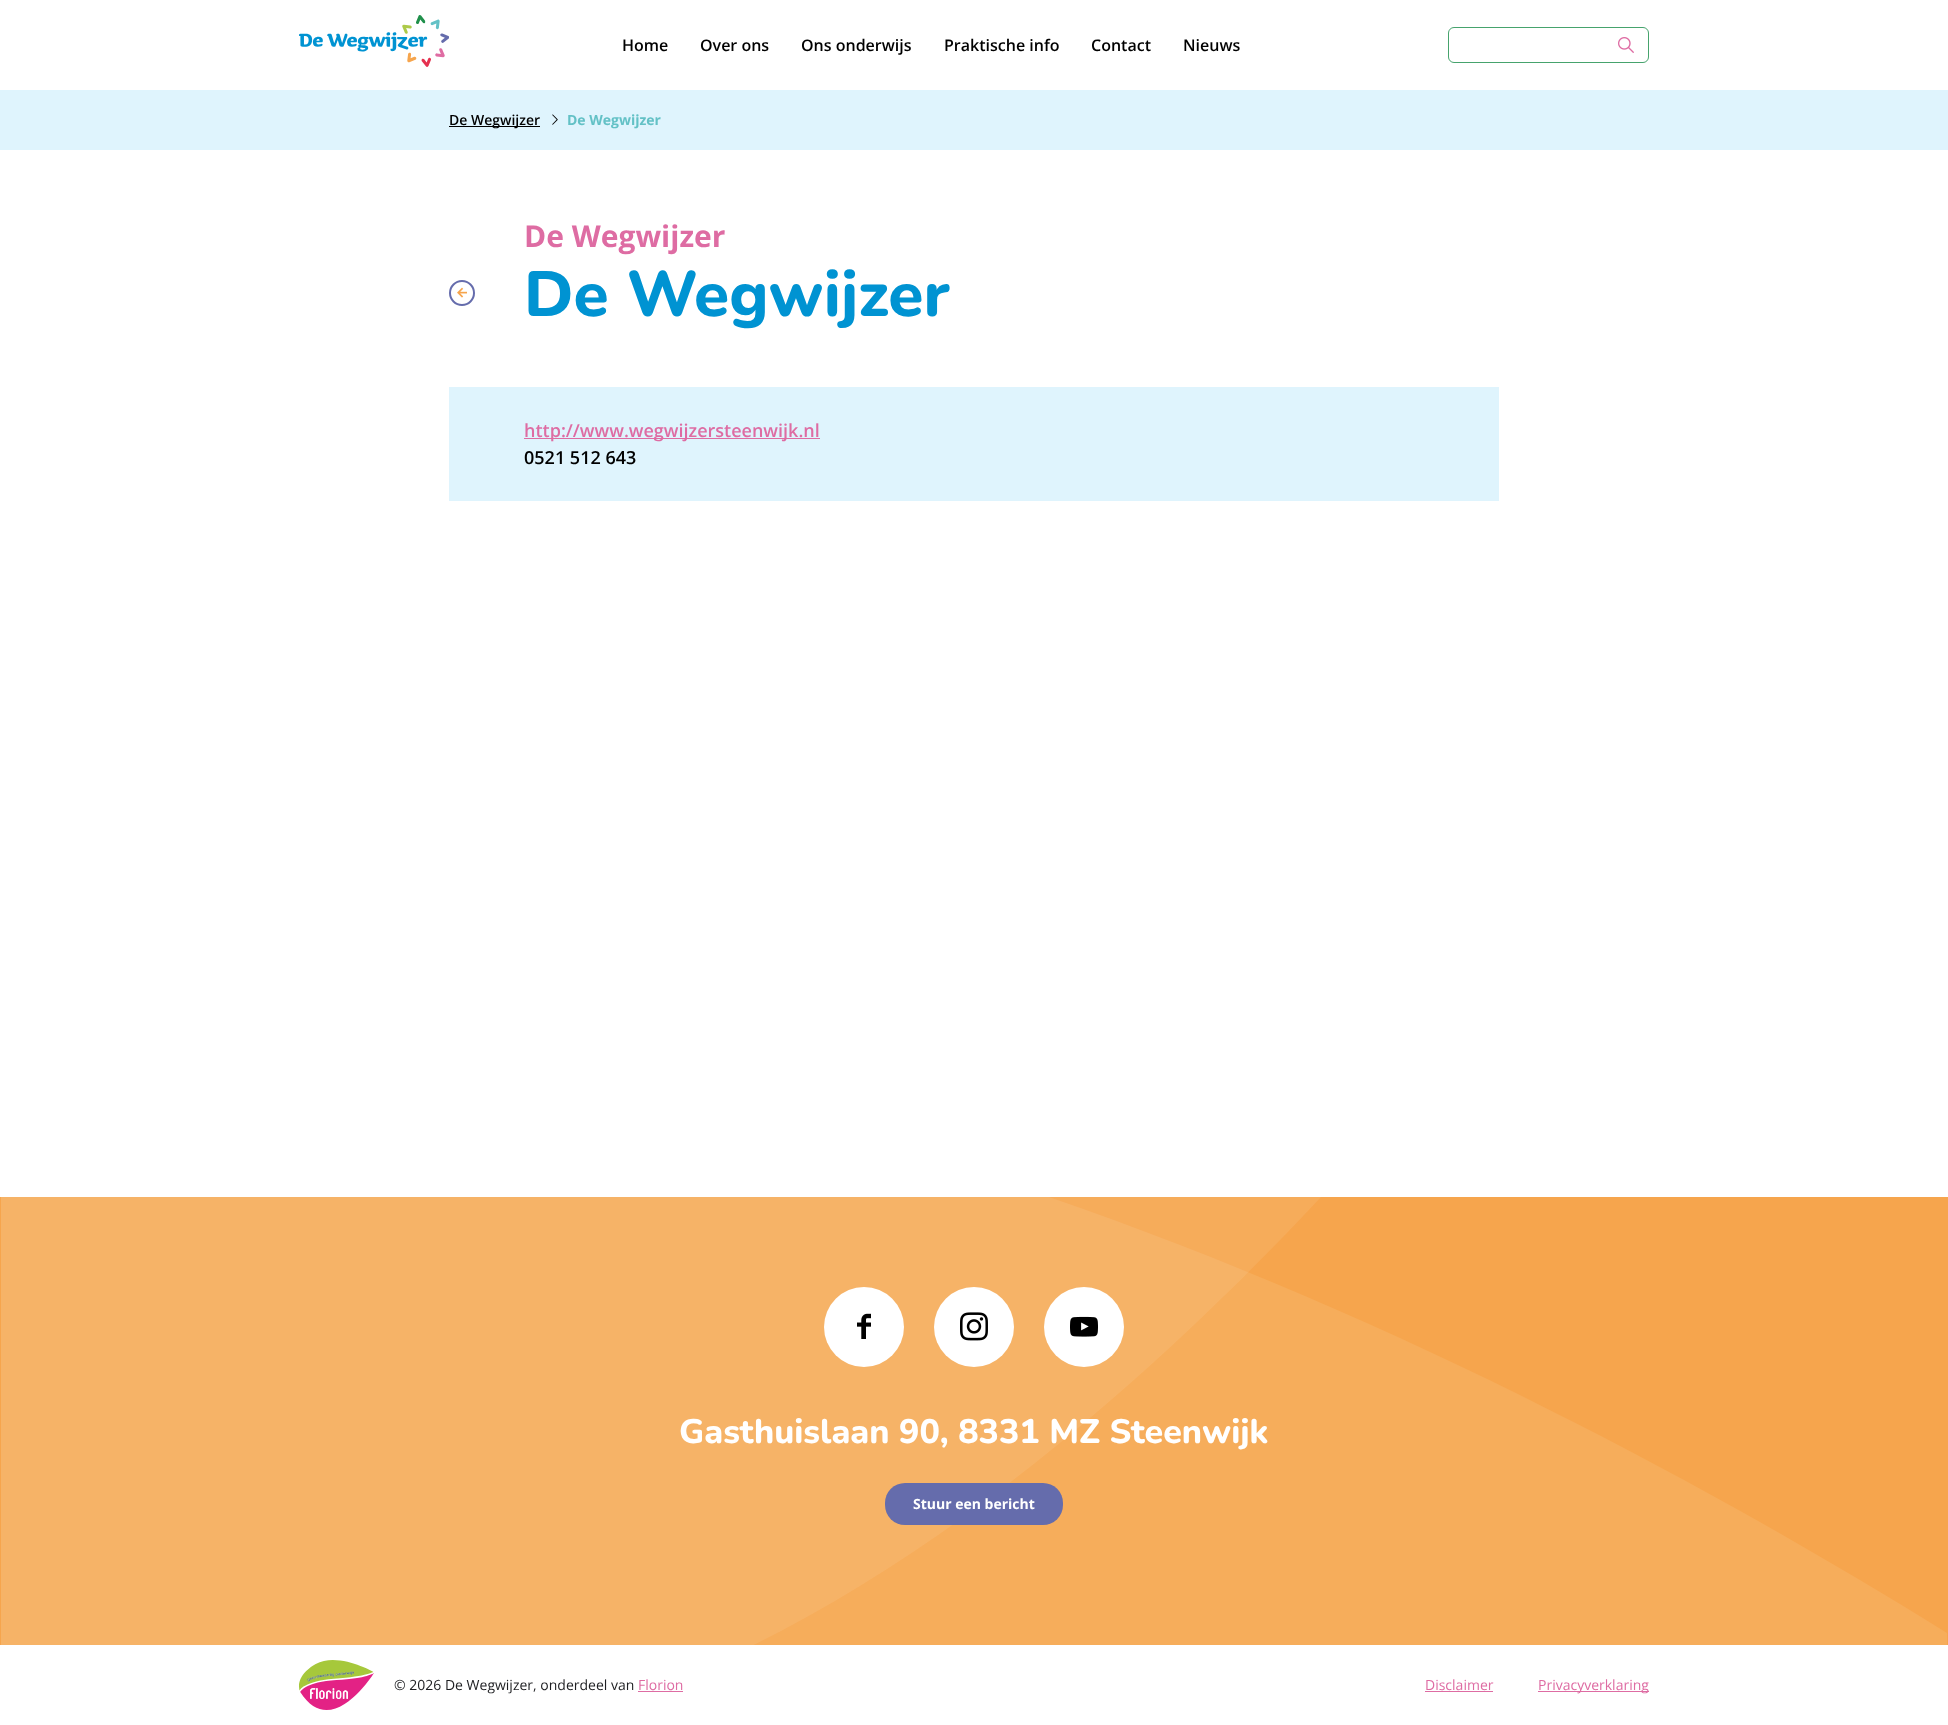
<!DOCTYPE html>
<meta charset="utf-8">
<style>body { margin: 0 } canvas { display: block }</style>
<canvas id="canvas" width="1948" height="1725"></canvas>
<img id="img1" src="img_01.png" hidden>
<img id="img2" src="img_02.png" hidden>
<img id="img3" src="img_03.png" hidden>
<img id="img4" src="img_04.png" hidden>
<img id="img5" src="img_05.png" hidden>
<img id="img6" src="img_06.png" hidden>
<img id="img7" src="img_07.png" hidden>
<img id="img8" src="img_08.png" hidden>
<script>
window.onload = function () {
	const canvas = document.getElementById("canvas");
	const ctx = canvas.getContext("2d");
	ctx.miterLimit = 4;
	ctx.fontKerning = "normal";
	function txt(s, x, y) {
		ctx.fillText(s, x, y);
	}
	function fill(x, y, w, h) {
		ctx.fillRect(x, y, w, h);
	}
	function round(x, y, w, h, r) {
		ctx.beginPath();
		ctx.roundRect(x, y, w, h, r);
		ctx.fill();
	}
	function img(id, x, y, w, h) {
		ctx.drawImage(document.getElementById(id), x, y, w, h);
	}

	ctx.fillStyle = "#FFFFFF";
	fill(0, 0, 1948, 1725);
	img("img1", 299, 15, 150, 52);
	ctx.beginPath();
	ctx.roundRect(1448.5, 27.5, 200, 35, 5.5);
	ctx.strokeStyle = "#46A36D";
	ctx.stroke();
	img("img2", 1618, 37, 16, 16);
	ctx.fillStyle = "#DFF4FD";
	fill(0, 90, 1948, 60);
	ctx.fillStyle = "#000000";
	fill(449, 126, 91, 1);
	img("img3", 552, 114, 6, 11);
	ctx.beginPath();
	ctx.arc(462, 293, 12, 0, Math.PI * 2);
	ctx.strokeStyle = "#656CAC";
	ctx.lineWidth = 2;
	ctx.stroke();
	img("img4", 457, 287, 10, 11);
	ctx.fillStyle = "#DFF4FD";
	fill(449, 387, 1050, 114);
	ctx.fillStyle = "#DE6CA3";
	fill(524, 438, 296, 1);
	ctx.fillStyle = "#F6A54D";
	fill(0, 1197, 1948, 448);
	ctx.fillStyle = "#F6AD5B";
	ctx.beginPath();
	ctx.moveTo(1, 1197);
	ctx.lineTo(1, 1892);
	ctx.lineTo(1947, 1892);
	ctx.lineTo(1947, 1633);
	ctx.bezierCurveTo(1722, 1493, 1401, 1318, 1049, 1197);
	ctx.closePath();
	ctx.fill();
	ctx.fillStyle = "rgba(255, 255, 255, 0.08)";
	ctx.beginPath();
	ctx.moveTo(1321, 1197);
	ctx.lineTo(1, 1197);
	ctx.lineTo(1, 1650);
	ctx.bezierCurveTo(479, 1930, 982, 1559, 1321, 1197);
	ctx.closePath();
	ctx.fill();
	ctx.fillStyle = "#FFFFFF";
	ctx.beginPath();
	ctx.arc(864, 1327, 40, 0, Math.PI * 2);
	ctx.fill();
	img("img5", 857, 1313, 14, 26);
	ctx.beginPath();
	ctx.arc(974, 1327, 40, 0, Math.PI * 2);
	ctx.fill();
	img("img6", 960, 1312, 28, 29);
	ctx.beginPath();
	ctx.arc(1084, 1327, 40, 0, Math.PI * 2);
	ctx.fill();
	img("img7", 1070, 1316, 28, 21);
	ctx.fillStyle = "#656CAC";
	round(885, 1483, 178, 42, 20);
	ctx.fillStyle = "#FFFFFF";
	fill(1, 1645, 1946, 80);
	img("img8", 299, 1660, 75, 50);
	ctx.fillStyle = "#DE6CA3";
	fill(638, 1691, 45, 1);
	fill(1425, 1691, 68, 1);
	fill(1538, 1691, 111, 1);
	ctx.font = "600 16px Open Sans";
	ctx.fillStyle = "#000000";
	txt("Home", 622, 51);
	txt("Over ons", 700, 51);
	txt("Ons onderwijs", 801, 51);
	txt("Praktische info", 944, 51);
	txt("Contact", 1091, 51);
	txt("Nieuws", 1183, 51);
	ctx.font = "600 14px Open Sans";
	txt("De Wegwijzer", 449, 125);
	ctx.font = "bold 14px Open Sans";
	ctx.fillStyle = "#63C1C6";
	txt("De Wegwijzer", 567, 125);
	ctx.font = "bold 30px Open Sans";
	ctx.fillStyle = "#DE6CA3";
	txt("De Wegwijzer", 524, 247);
	ctx.font = "200 64px Nunito";
	ctx.fillStyle = "#0093D2";
	txt("De Wegwijzer", 524, 316);
	ctx.font = "600 18px Open Sans";
	ctx.fillStyle = "#DE6CA3";
	txt("http://www.wegwijzersteenwijk.nl", 524, 437);
	ctx.fillStyle = "#000000";
	txt("0521 512 643", 524, 464);
	ctx.font = "200 34px Nunito";
	ctx.fillStyle = "#FFFFFF";
	txt("Gasthuislaan 90, 8331 MZ Steenwijk", 679, 1443);
	ctx.font = "bold 14px Open Sans";
	txt("Stuur een bericht", 913, 1509);
	ctx.font = "14px Open Sans";
	ctx.fillStyle = "#1D1E21";
	txt("© 2026 De Wegwijzer, onderdeel van", 394, 1690);
	ctx.fillStyle = "#DE6CA3";
	txt("Florion", 638, 1690);
	txt("Disclaimer", 1425, 1690);
	txt("Privacyverklaring", 1538, 1690);
};
</script>
